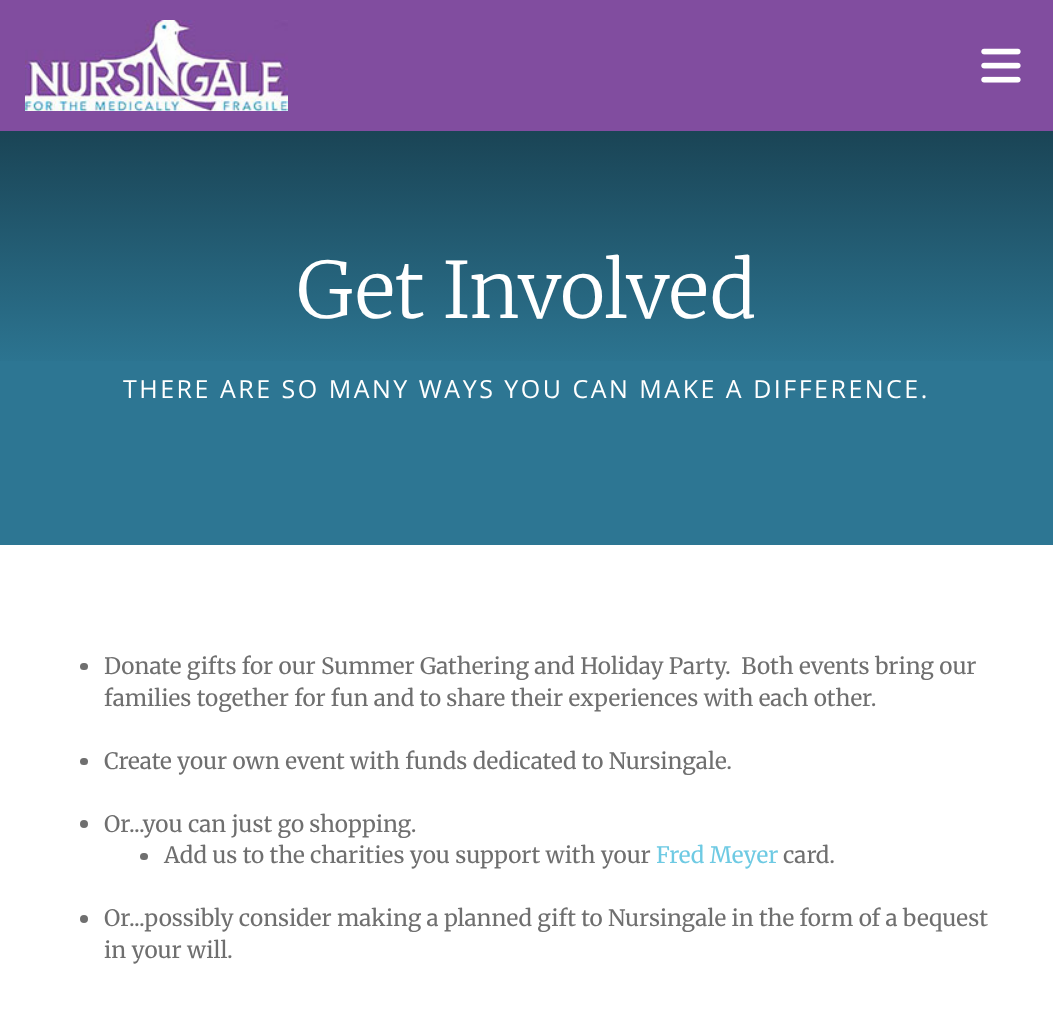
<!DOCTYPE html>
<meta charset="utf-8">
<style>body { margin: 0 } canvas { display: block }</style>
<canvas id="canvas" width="1053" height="1015"></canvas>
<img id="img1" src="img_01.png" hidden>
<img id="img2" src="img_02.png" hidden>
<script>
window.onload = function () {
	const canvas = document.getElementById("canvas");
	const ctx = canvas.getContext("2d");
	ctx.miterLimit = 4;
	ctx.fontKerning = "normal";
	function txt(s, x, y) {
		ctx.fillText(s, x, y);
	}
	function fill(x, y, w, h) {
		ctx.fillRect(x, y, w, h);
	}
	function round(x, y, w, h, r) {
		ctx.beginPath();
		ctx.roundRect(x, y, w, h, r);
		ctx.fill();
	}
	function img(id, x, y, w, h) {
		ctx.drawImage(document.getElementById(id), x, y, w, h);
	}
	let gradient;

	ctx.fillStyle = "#2D7693";
	fill(0, 0, 1053, 1015);
	ctx.fillStyle = "#814D9F";
	fill(0, 0, 1053, 131);
	img("img1", 25, 20, 263, 91);
	img("img2", 981, 48, 40, 35);
	gradient = ctx.createLinearGradient(527, 0, 527, 375);
	gradient.addColorStop(0, "#102934");
	gradient.addColorStop(1, "#2D7794");
	ctx.fillStyle = gradient;
	fill(0, 131, 1053, 230);
	ctx.fillStyle = "#FFFFFF";
	fill(0, 545, 1053, 470);
	ctx.fillStyle = "#6F6F6F";
	round(80, 663, 8, 7, 3.5);
	round(80, 758, 8, 7, 3.5);
	ctx.beginPath();
	ctx.arc(84, 824, 4, 0, Math.PI * 2);
	ctx.fill();
	round(140, 853, 8, 7, 3.5);
	ctx.beginPath();
	ctx.arc(84, 919, 4, 0, Math.PI * 2);
	ctx.fill();
	ctx.font = "300 77.5px Merriweather";
	ctx.fillStyle = "#FFFFFF";
	txt("Get Involved", 297, 318);
	ctx.letterSpacing = "2.5px";
	ctx.font = "25px Open Sans";
	txt("THERE ARE SO MANY WAYS YOU CAN MAKE A DIFFERENCE.", 123, 398);
	ctx.letterSpacing = "0px";
	ctx.font = "22.5px Merriweather";
	ctx.fillStyle = "#6F6F6F";
	txt("Donate gifts for our Summer Gathering and Holiday Party.  Both events bring our", 104, 674);
	txt("families together for fun and to share their experiences with each other.", 104, 706);
	txt("Create your own event with funds dedicated to Nursingale.", 104, 769);
	txt("Or...you can just go shopping.", 104, 832);
	txt("Add us to the charities you support with your", 164, 863);
	ctx.fillStyle = "#6ECAE3";
	txt("Fred Meyer", 656, 863);
	ctx.fillStyle = "#6F6F6F";
	txt("card.", 783, 863);
	txt("Or...possibly consider making a planned gift to Nursingale in the form of a bequest", 104, 926);
	txt("in your will.", 104, 958);
};
</script>
